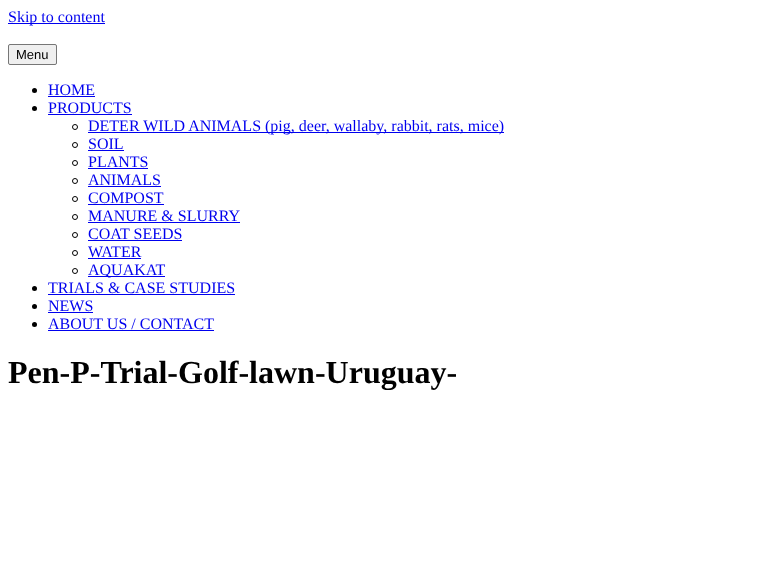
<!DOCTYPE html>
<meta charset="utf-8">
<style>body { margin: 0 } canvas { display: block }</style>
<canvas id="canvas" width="775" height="561"></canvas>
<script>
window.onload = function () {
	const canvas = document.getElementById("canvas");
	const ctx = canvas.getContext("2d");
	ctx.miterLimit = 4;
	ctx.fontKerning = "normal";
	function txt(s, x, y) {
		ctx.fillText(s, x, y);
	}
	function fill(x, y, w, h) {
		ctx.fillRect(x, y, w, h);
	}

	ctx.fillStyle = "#FFFFFF";
	fill(0, 0, 775, 561);
	ctx.fillStyle = "#0000EE";
	fill(8, 23, 97, 1);
	ctx.fillStyle = "#EFEFEF";
	ctx.beginPath();
	ctx.roundRect(8.5, 44.5, 48, 20, 1.5);
	ctx.fill();
	ctx.strokeStyle = "#767676";
	ctx.stroke();
	ctx.fillStyle = "#000000";
	ctx.beginPath();
	ctx.arc(34.5, 90.5, 2.5, 0, Math.PI * 2);
	ctx.fill();
	ctx.fillStyle = "#0000EE";
	fill(48, 96, 47, 1);
	ctx.fillStyle = "#000000";
	ctx.beginPath();
	ctx.arc(34.5, 108.5, 2.5, 0, Math.PI * 2);
	ctx.fill();
	ctx.fillStyle = "#0000EE";
	fill(48, 114, 84, 1);
	ctx.beginPath();
	ctx.arc(75, 127, 2.5, 0, Math.PI * 2);
	ctx.strokeStyle = "#000000";
	ctx.stroke();
	fill(88, 132, 416, 1);
	ctx.beginPath();
	ctx.arc(75, 145, 2.5, 0, Math.PI * 2);
	ctx.stroke();
	fill(88, 150, 36, 1);
	ctx.beginPath();
	ctx.arc(75, 163, 2.5, 0, Math.PI * 2);
	ctx.stroke();
	fill(88, 168, 60, 1);
	ctx.beginPath();
	ctx.arc(75, 181, 2.5, 0, Math.PI * 2);
	ctx.stroke();
	fill(88, 186, 73, 1);
	ctx.beginPath();
	ctx.arc(75, 199, 2.5, 0, Math.PI * 2);
	ctx.stroke();
	fill(88, 204, 76, 1);
	ctx.beginPath();
	ctx.arc(75, 217, 2.5, 0, Math.PI * 2);
	ctx.stroke();
	fill(88, 222, 152, 1);
	ctx.beginPath();
	ctx.arc(75, 235, 2.5, 0, Math.PI * 2);
	ctx.stroke();
	fill(88, 240, 94, 1);
	ctx.beginPath();
	ctx.arc(75, 253, 2.5, 0, Math.PI * 2);
	ctx.stroke();
	fill(88, 258, 53, 1);
	ctx.beginPath();
	ctx.arc(75, 271, 2.5, 0, Math.PI * 2);
	ctx.stroke();
	fill(88, 276, 77, 1);
	ctx.fillStyle = "#000000";
	ctx.beginPath();
	ctx.arc(34.5, 288.5, 2.5, 0, Math.PI * 2);
	ctx.fill();
	ctx.fillStyle = "#0000EE";
	fill(48, 294, 187, 1);
	ctx.fillStyle = "#000000";
	ctx.beginPath();
	ctx.arc(34.5, 306.5, 2.5, 0, Math.PI * 2);
	ctx.fill();
	ctx.fillStyle = "#0000EE";
	fill(48, 312, 45, 1);
	ctx.fillStyle = "#000000";
	ctx.beginPath();
	ctx.arc(34.5, 324.5, 2.5, 0, Math.PI * 2);
	ctx.fill();
	ctx.fillStyle = "#0000EE";
	fill(48, 330, 166, 1);
	ctx.font = "16px Liberation Serif";
	txt("Skip to content", 8, 22);
	ctx.font = "13px Liberation Sans";
	ctx.fillStyle = "#000000";
	txt("Menu", 16, 59);
	ctx.font = "16px Liberation Serif";
	ctx.fillStyle = "#0000EE";
	txt("HOME", 48, 95);
	txt("PRODUCTS", 48, 113);
	txt("DETER WILD ANIMALS (pig, deer, wallaby, rabbit, rats, mice)", 88, 131);
	txt("SOIL", 88, 149);
	txt("PLANTS", 88, 167);
	txt("ANIMALS", 88, 185);
	txt("COMPOST", 88, 203);
	txt("MANURE & SLURRY", 88, 221);
	txt("COAT SEEDS", 88, 239);
	txt("WATER", 88, 257);
	txt("AQUAKAT", 88, 275);
	txt("TRIALS & CASE STUDIES", 48, 293);
	txt("NEWS", 48, 311);
	txt("ABOUT US / CONTACT", 48, 329);
	ctx.font = "bold 32px Liberation Serif";
	ctx.fillStyle = "#000000";
	txt("Pen-P-Trial-Golf-lawn-Uruguay-", 8, 383);
};
</script>
